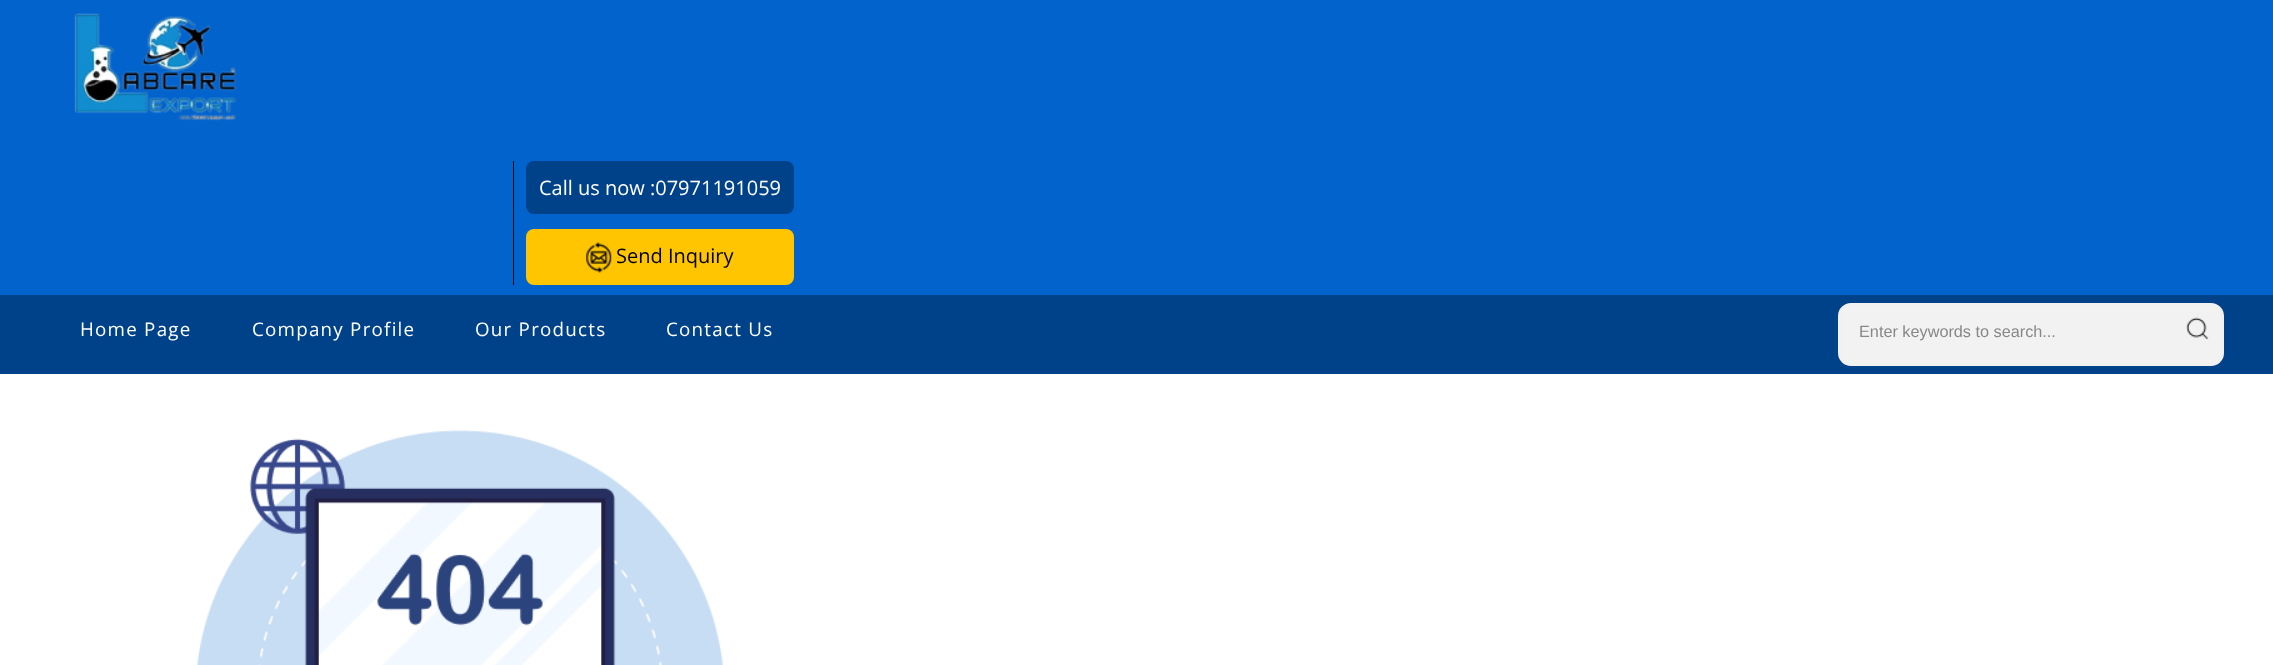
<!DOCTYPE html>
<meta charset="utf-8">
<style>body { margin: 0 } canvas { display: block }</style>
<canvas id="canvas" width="2273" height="665"></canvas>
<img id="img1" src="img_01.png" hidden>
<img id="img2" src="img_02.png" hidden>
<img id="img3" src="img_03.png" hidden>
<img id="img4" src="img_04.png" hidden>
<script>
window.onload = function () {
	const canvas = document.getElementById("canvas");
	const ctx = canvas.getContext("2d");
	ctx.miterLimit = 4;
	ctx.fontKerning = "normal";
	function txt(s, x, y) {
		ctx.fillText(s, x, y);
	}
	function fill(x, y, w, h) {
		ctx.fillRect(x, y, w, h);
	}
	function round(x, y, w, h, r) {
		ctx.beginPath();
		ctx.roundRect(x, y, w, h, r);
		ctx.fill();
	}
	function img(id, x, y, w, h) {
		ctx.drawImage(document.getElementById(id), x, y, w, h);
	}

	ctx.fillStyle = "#FFFFFF";
	fill(0, 0, 2273, 665);
	ctx.fillStyle = "#0263CC";
	fill(0, 0, 2273, 295);
	img("img1", 74, 13, 163, 108);
	ctx.fillStyle = "#000000";
	fill(513, 161, 1, 124);
	ctx.fillStyle = "#00428A";
	round(526, 161, 268, 53, 8);
	ctx.fillStyle = "#FFC600";
	round(526, 229, 268, 56, 8);
	img("img2", 586, 242, 26, 31);
	ctx.fillStyle = "#00428A";
	fill(0, 295, 2273, 79);
	ctx.fillStyle = "#F2F2F2";
	ctx.beginPath();
	ctx.roundRect(1840, 305, 382, 59, 11);
	ctx.fill();
	ctx.strokeStyle = "#F1F1F1";
	ctx.lineWidth = 4;
	ctx.stroke();
	img("img3", 2186, 317, 23, 23);
	img("img4", 197, 430, 526, 235);
	ctx.font = "20px Open Sans";
	ctx.fillStyle = "#FFFFFF";
	txt("Call us now :07971191059", 539, 195);
	ctx.fillStyle = "#000000";
	txt("Send Inquiry", 616, 263);
	ctx.letterSpacing = "1.25px";
	ctx.font = "18.75px Open Sans";
	ctx.fillStyle = "#FFFFFF";
	txt("Home Page", 80, 336);
	txt("Company Profile", 252, 336);
	txt("Our Products", 475, 336);
	txt("Contact Us", 666, 336);
	ctx.letterSpacing = "0px";
	ctx.font = "16.25px Liberation Sans";
	ctx.fillStyle = "#888888";
	txt("Enter keywords to search...", 1859, 337);
};
</script>
